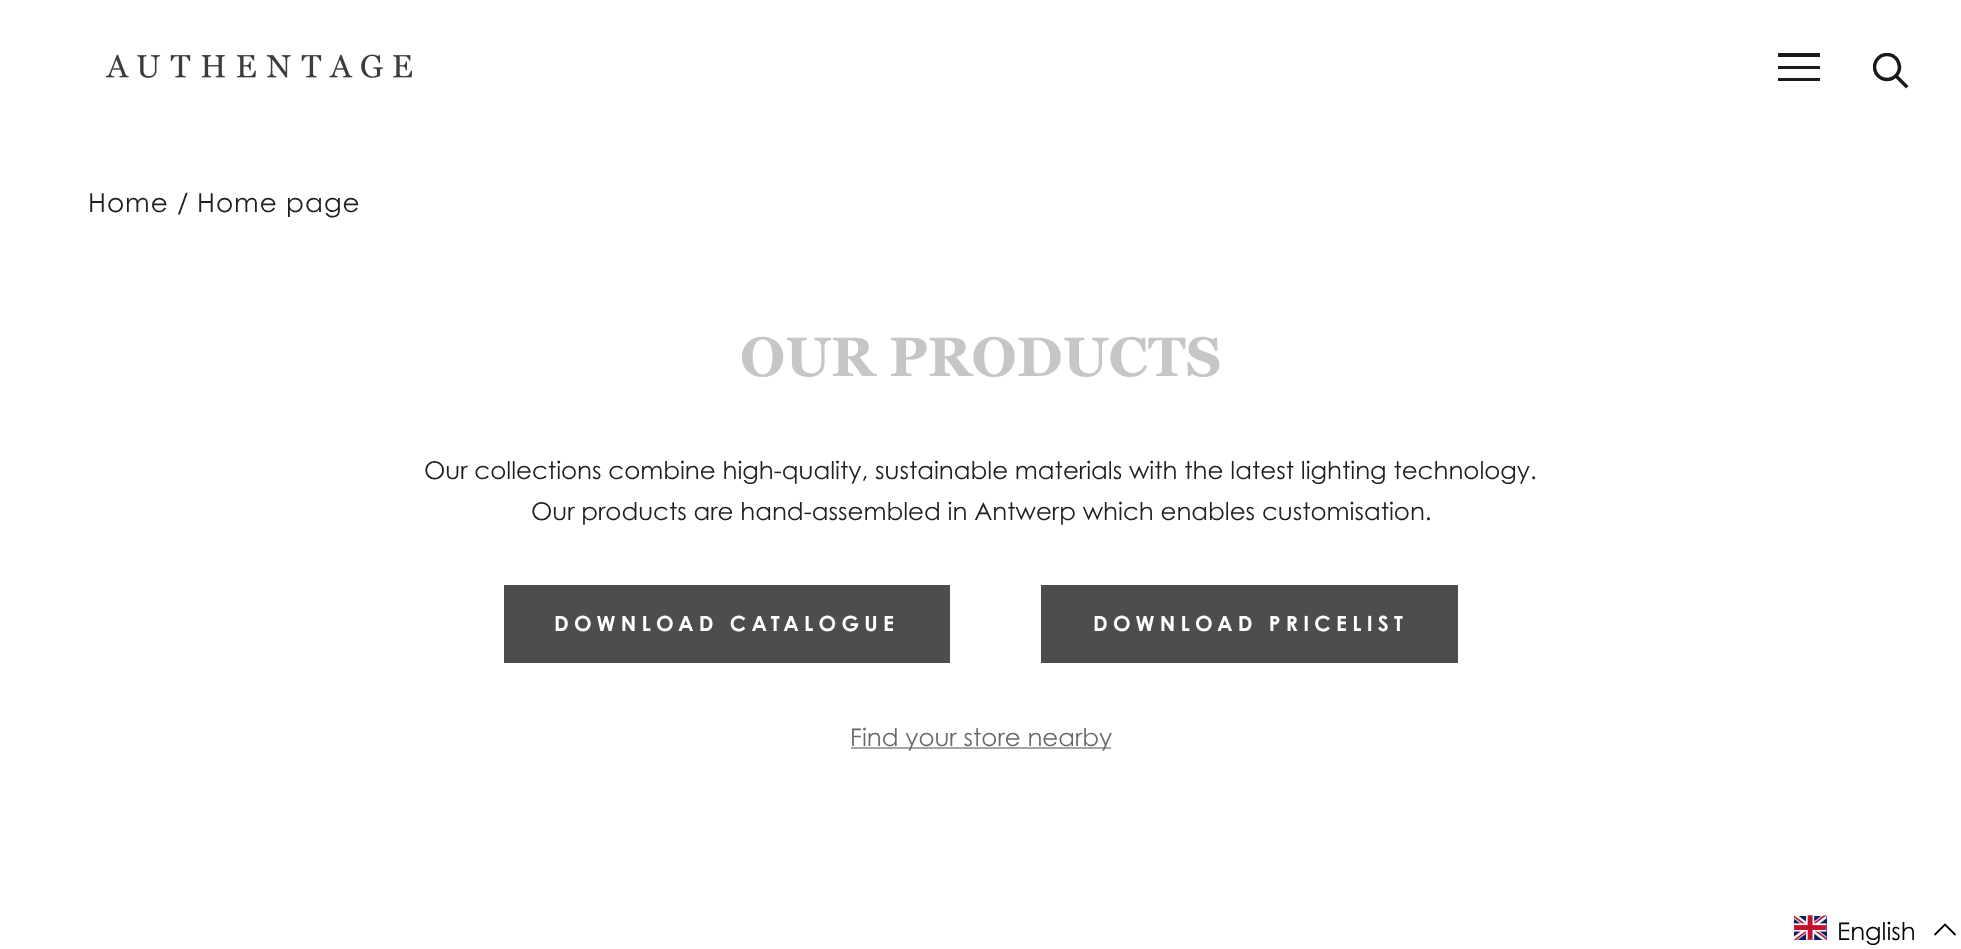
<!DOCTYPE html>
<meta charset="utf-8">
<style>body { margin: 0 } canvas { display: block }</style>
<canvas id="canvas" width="1961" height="949"></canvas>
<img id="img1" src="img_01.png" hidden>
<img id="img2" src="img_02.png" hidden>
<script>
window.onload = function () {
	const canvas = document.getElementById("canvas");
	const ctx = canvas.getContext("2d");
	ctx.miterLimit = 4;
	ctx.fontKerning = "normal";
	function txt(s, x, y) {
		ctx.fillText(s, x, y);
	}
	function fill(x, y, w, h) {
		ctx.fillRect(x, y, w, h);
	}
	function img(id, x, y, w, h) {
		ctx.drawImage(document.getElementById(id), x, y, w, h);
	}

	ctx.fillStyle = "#FFFFFF";
	fill(0, 0, 1961, 949);
	img("img1", 105, 54, 307, 24);
	ctx.fillStyle = "#1C1B1B";
	ctx.beginPath();
	ctx.moveTo(1778, 81);
	ctx.lineTo(1778, 78);
	ctx.lineTo(1820, 78);
	ctx.lineTo(1820, 81);
	ctx.closePath();
	ctx.moveTo(1778, 66);
	ctx.lineTo(1820, 66);
	ctx.lineTo(1820, 69);
	ctx.lineTo(1778, 69);
	ctx.closePath();
	ctx.moveTo(1778, 53);
	ctx.lineTo(1820, 53);
	ctx.lineTo(1820, 57);
	ctx.lineTo(1778, 57);
	ctx.closePath();
	ctx.fill();
	ctx.beginPath();
	ctx.moveTo(1906, 86);
	ctx.lineTo(1896, 76);
	ctx.strokeStyle = "#1C1B1B";
	ctx.lineWidth = 3.5;
	ctx.lineCap = "square";
	ctx.stroke();
	ctx.save();
	ctx.beginPath();
	ctx.rect(1873, 53, 36, 36);
	ctx.clip();
	ctx.beginPath();
	ctx.arc(1887, 67, 12.5, 0, Math.PI * 2);
	ctx.stroke();
	ctx.restore();
	ctx.strokeStyle = "#4D4E4C";
	ctx.lineWidth = 2;
	ctx.strokeRect(505, 586, 444, 76);
	ctx.fillStyle = "#4D4E4C";
	fill(506, 587, 442, 74);
	ctx.strokeRect(1042, 586, 415, 76);
	fill(1043, 587, 413, 74);
	ctx.fillStyle = "#A6A6A6";
	fill(851, 747, 260, 2);
	img("img2", 1794, 915, 33, 25);
	ctx.beginPath();
	ctx.moveTo(1955.5, 935);
	ctx.lineTo(1945, 924.5);
	ctx.lineTo(1934.5, 935);
	ctx.strokeStyle = "#000000";
	ctx.lineWidth = 1.8;
	ctx.lineCap = "butt";
	ctx.stroke();
	ctx.letterSpacing = "1px";
	ctx.font = "26.25px Century Gothic";
	ctx.fillStyle = "#202020";
	txt("Home /", 88, 212);
	txt("Home page", 197, 212);
	ctx.letterSpacing = "0px";
	ctx.font = "bold 55.1px Georgia";
	ctx.fillStyle = "#C6C6C6";
	txt("OUR PRODUCTS", 740, 376);
	ctx.font = "24.5px Century Gothic";
	ctx.fillStyle = "#202020";
	txt("Our collections combine high-quality, sustainable materials with the latest lighting technology.", 424, 479);
	txt("Our products are hand-assembled in Antwerp which enables customisation.", 531, 520);
	ctx.letterSpacing = "5.25px";
	ctx.font = "bold 21px Century Gothic";
	ctx.fillStyle = "#FFFFFF";
	txt("DOWNLOAD CATALOGUE", 554, 631);
	txt("DOWNLOAD PRICELIST", 1093, 631);
	ctx.letterSpacing = "0px";
	ctx.font = "24.5px Century Gothic";
	ctx.fillStyle = "#6A6A6A";
	txt("Find your store nearby", 850, 746);
	ctx.fillStyle = "#000000";
	txt("English", 1837, 940);
};
</script>
